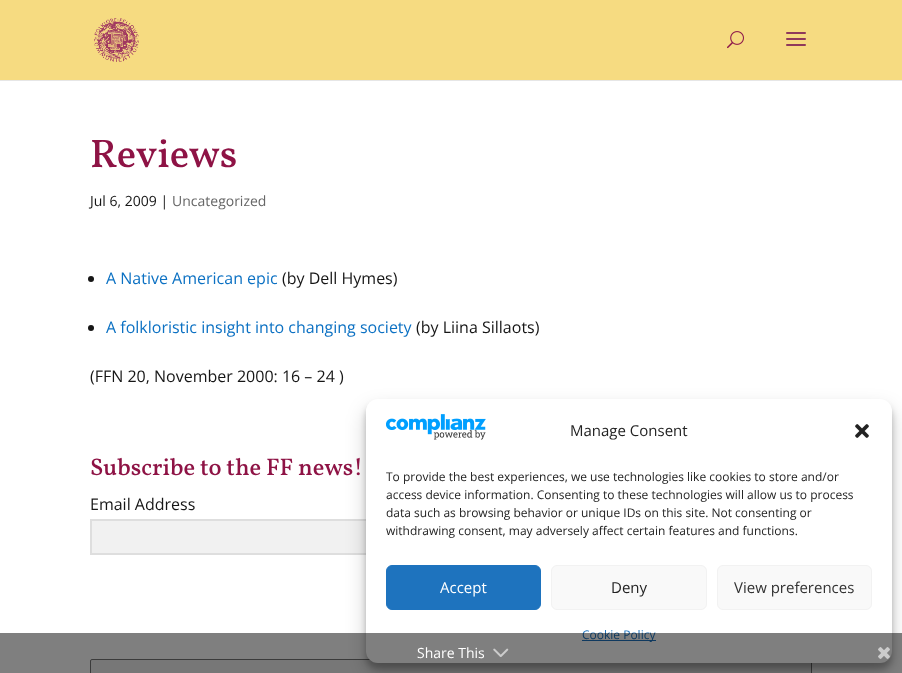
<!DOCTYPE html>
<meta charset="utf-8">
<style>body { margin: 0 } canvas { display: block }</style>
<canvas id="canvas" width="902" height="673"></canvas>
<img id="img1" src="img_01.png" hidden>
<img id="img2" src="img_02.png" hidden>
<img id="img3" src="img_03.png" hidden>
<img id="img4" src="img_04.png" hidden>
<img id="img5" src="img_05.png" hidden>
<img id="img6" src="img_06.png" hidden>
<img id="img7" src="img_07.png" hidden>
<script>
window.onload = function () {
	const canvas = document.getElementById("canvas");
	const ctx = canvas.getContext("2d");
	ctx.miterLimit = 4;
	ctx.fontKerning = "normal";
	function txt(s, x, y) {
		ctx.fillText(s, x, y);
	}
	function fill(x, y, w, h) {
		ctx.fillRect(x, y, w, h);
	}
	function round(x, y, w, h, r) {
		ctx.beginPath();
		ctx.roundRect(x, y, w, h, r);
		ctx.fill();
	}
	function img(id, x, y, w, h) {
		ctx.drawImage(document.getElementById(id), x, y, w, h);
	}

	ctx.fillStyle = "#FFFFFF";
	fill(0, 0, 902, 673);
	ctx.fillStyle = "#E6E6E6";
	fill(0, 80, 902, 1);
	ctx.fillStyle = "#F6DB81";
	fill(0, 0, 902, 80);
	img("img1", 94, 18, 45, 44);
	img("img2", 727, 31, 17, 18);
	img("img3", 786, 32, 20, 14);
	ctx.fillStyle = "#161616";
	ctx.beginPath();
	ctx.arc(91, 279, 3, 0, Math.PI * 2);
	ctx.fill();
	ctx.beginPath();
	ctx.arc(91, 328, 3, 0, Math.PI * 2);
	ctx.fill();
	ctx.fillStyle = "#F1F1F1";
	fill(92, 521, 274, 32);
	ctx.strokeStyle = "#DEDEDE";
	ctx.lineWidth = 2;
	ctx.strokeRect(91, 520, 703, 34);
	ctx.fillStyle = "#EFEFEF";
	ctx.beginPath();
	ctx.roundRect(90.5, 659.5, 721, 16, 1.5);
	ctx.fill();
	ctx.strokeStyle = "#767676";
	ctx.lineWidth = 1;
	ctx.stroke();
	ctx.fillStyle = "rgba(0, 0, 0, 0.23)";
	ctx.filter = "blur(3px)";
	ctx.beginPath();
	ctx.roundRect(366, 405, 526, 264, 12);
	ctx.fill();
	ctx.filter = "none";
	ctx.fillStyle = "rgba(0, 0, 0, 0.19)";
	ctx.filter = "blur(10px)";
	ctx.beginPath();
	ctx.roundRect(366, 409, 526, 264, 12);
	ctx.fill();
	ctx.filter = "none";
	ctx.fillStyle = "#FFFFFF";
	round(366, 399, 526, 264, 12);
	img("img4", 386, 414, 100, 26);
	img("img5", 855, 424, 14, 14);
	ctx.fillStyle = "#1E73BE";
	ctx.beginPath();
	ctx.roundRect(386.5, 565.5, 154, 44, 5.5);
	ctx.fill();
	ctx.strokeStyle = "#1E73BE";
	ctx.stroke();
	ctx.fillStyle = "#F9F9F9";
	ctx.beginPath();
	ctx.roundRect(551.5, 565.5, 155, 44, 5.5);
	ctx.fill();
	ctx.strokeStyle = "#F2F2F2";
	ctx.stroke();
	ctx.beginPath();
	ctx.roundRect(717.5, 565.5, 154, 44, 5.5);
	ctx.fill();
	ctx.stroke();
	ctx.fillStyle = "#1E73BE";
	fill(582, 640, 74, 1);
	ctx.font = "500 40px Vollkorn";
	ctx.fillStyle = "#8E1345";
	txt("Reviews", 90, 167);
	ctx.font = "14px Open Sans";
	ctx.fillStyle = "#161616";
	txt("Jul 6, 2009 |", 90, 206);
	ctx.fillStyle = "#666666";
	txt("Uncategorized", 172, 206);
	ctx.font = "16px Open Sans";
	ctx.fillStyle = "#0C71C3";
	txt("A Native American epic", 106, 284);
	ctx.fillStyle = "#161616";
	txt("(by Dell Hymes)", 282, 284);
	ctx.fillStyle = "#0C71C3";
	txt("A folkloristic insight into changing society", 106, 333);
	ctx.fillStyle = "#161616";
	txt("(by Liina Sillaots)", 416, 333);
	txt("(FFN 20, November 2000: 16 – 24 )", 90, 382);
	ctx.font = "500 24px Vollkorn";
	ctx.fillStyle = "#8E1345";
	txt("Subscribe to the FF news!", 90, 475);
	ctx.font = "16px Open Sans";
	ctx.fillStyle = "#161616";
	txt("Email Address", 90, 510);
	ctx.font = "15px Open Sans";
	ctx.fillStyle = "#222222";
	txt("Manage Consent", 570, 436);
	ctx.font = "12px Open Sans";
	txt("To provide the best experiences, we use technologies like cookies to store and/or", 386, 481);
	txt("access device information. Consenting to these technologies will allow us to process", 386, 499);
	txt("data such as browsing behavior or unique IDs on this site. Not consenting or", 386, 517);
	txt("withdrawing consent, may adversely affect certain features and functions.", 386, 535);
	ctx.font = "15px Open Sans";
	ctx.fillStyle = "#FFFFFF";
	txt("Accept", 440, 593);
	ctx.fillStyle = "#222222";
	txt("Deny", 611, 593);
	ctx.fillStyle = "#333333";
	txt("View preferences", 734, 593);
	ctx.font = "12px Open Sans";
	ctx.fillStyle = "#1E73BE";
	txt("Cookie Policy", 582, 639);
	ctx.fillStyle = "rgba(0, 0, 0, 0.5)";
	fill(0, 633, 902, 40);
	ctx.font = "14px Open Sans";
	ctx.fillStyle = "#FFFFFF";
	txt("Share This", 417, 658);
	img("img6", 493, 648, 16, 9);
	img("img7", 878, 647, 12, 12);
};
</script>
